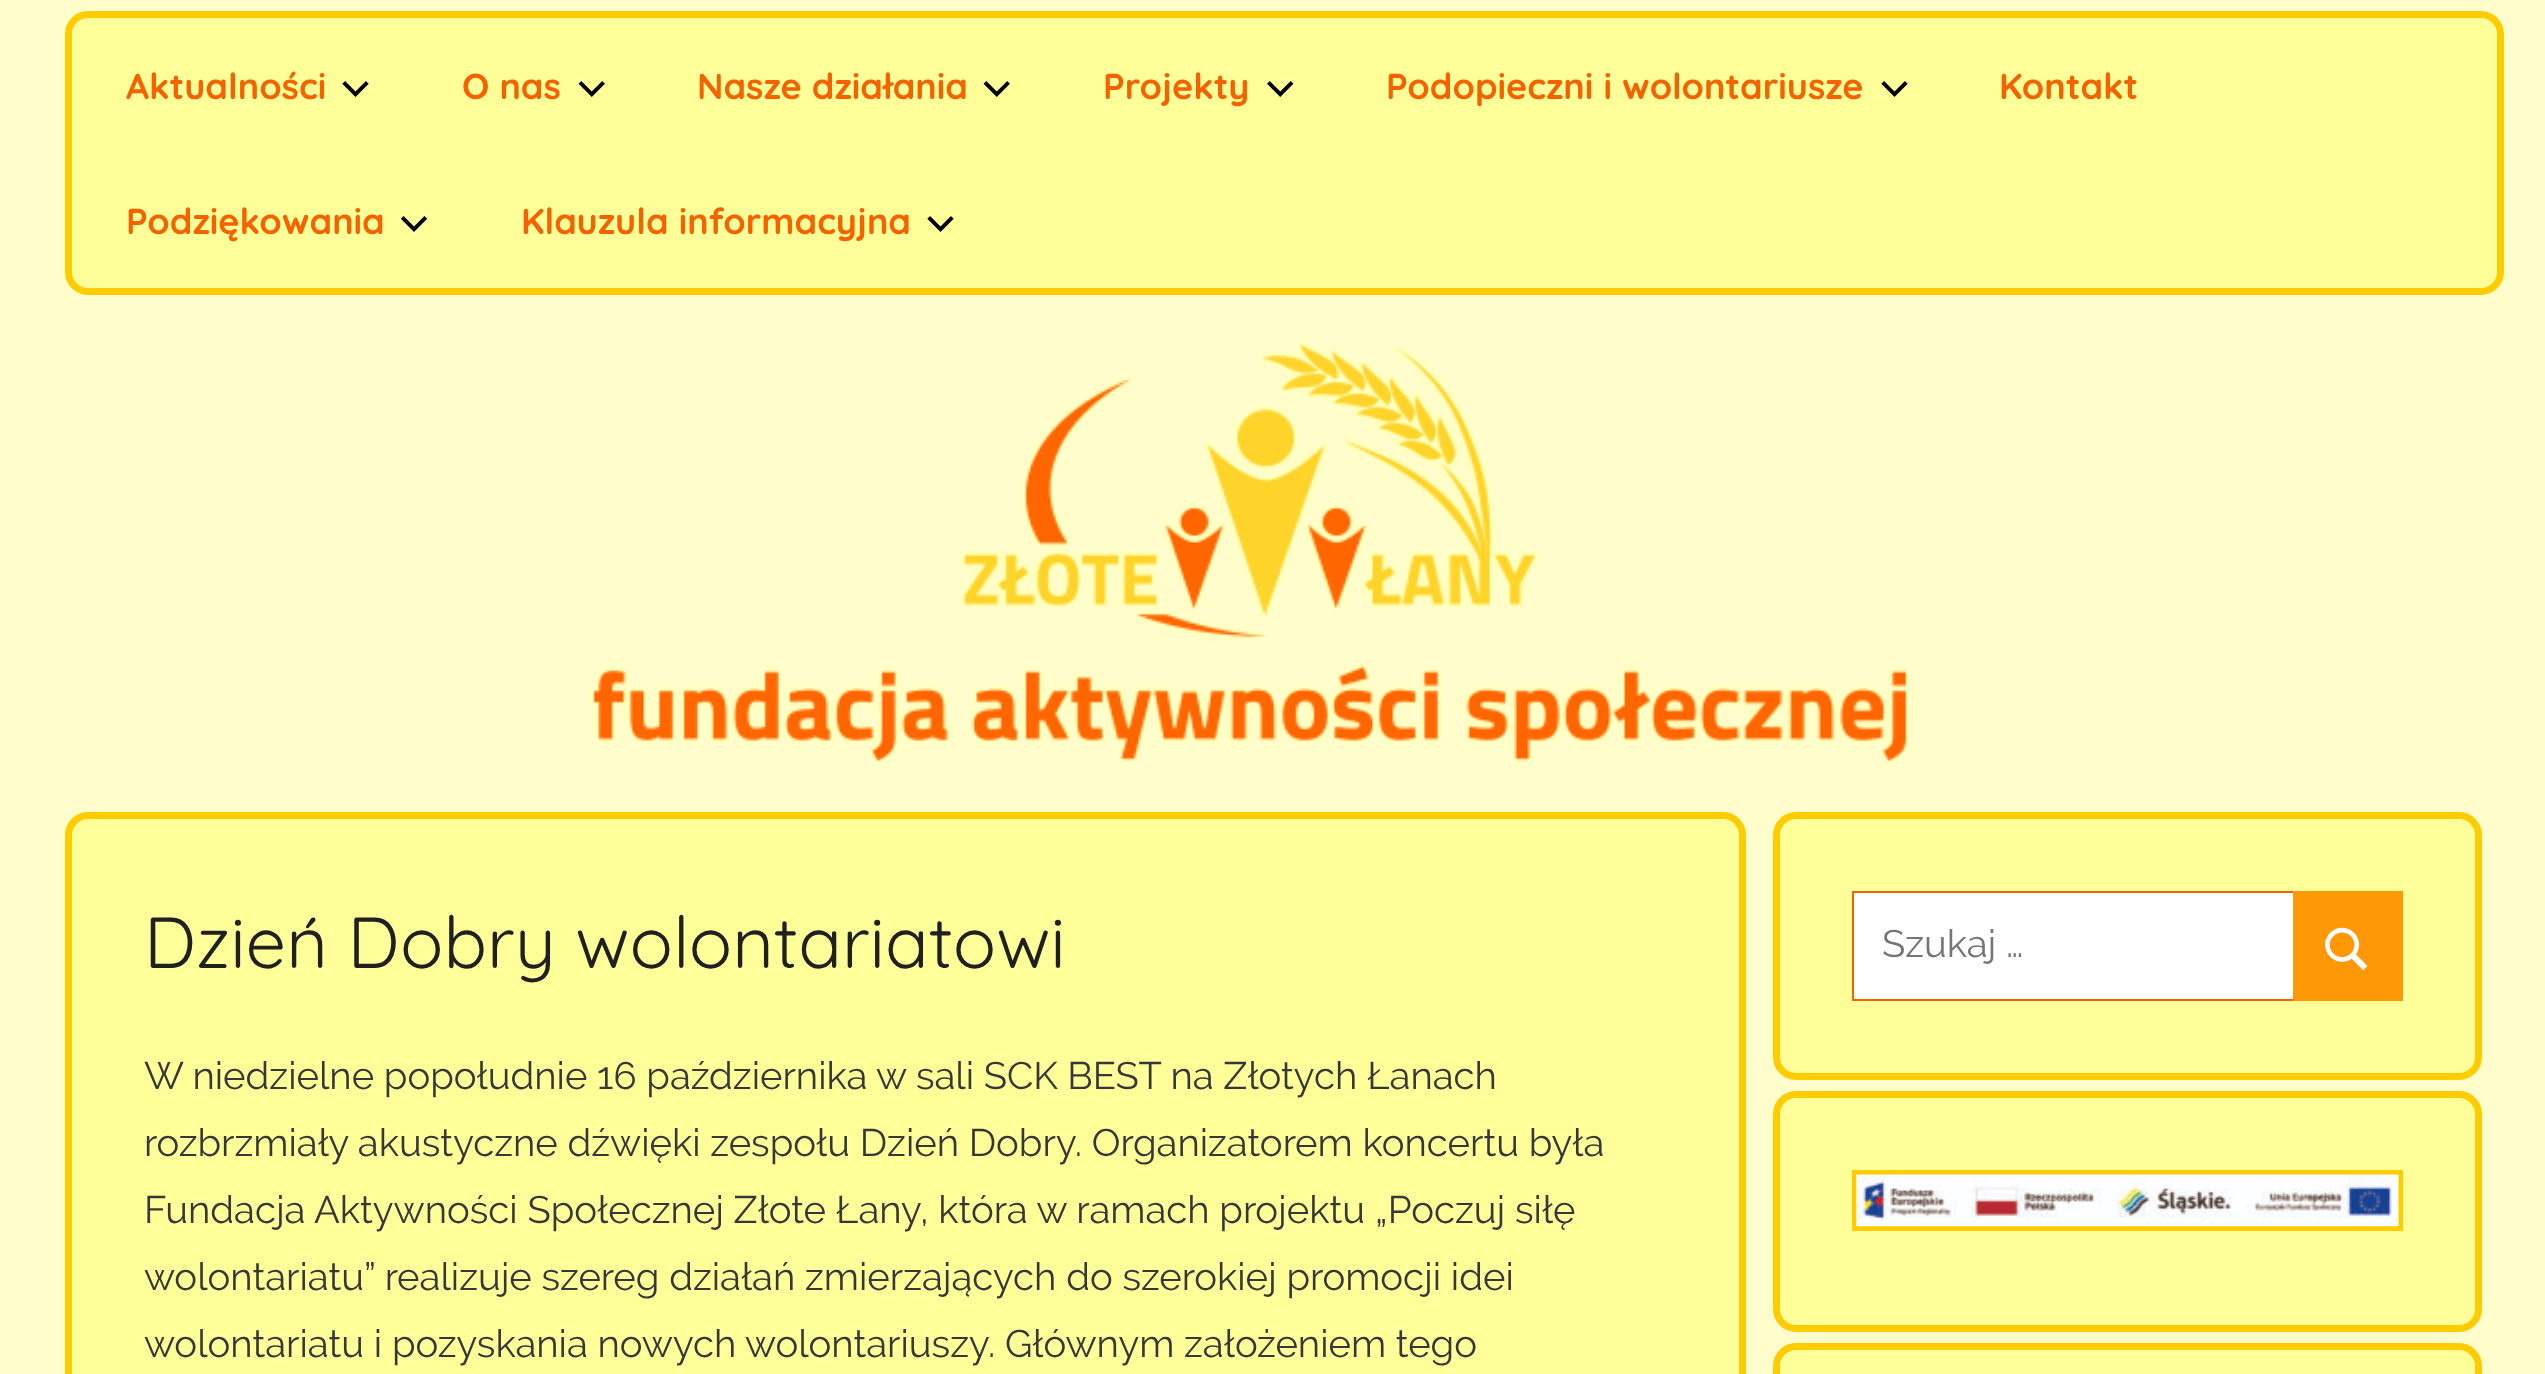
<!DOCTYPE html>
<meta charset="utf-8">
<style>body { margin: 0 } canvas { display: block }</style>
<canvas id="canvas" width="2545" height="1374"></canvas>
<img id="img1" src="img_01.png" hidden>
<img id="img2" src="img_02.png" hidden>
<img id="img3" src="img_03.png" hidden>
<img id="img4" src="img_04.png" hidden>
<img id="img5" src="img_05.png" hidden>
<img id="img6" src="img_06.png" hidden>
<img id="img7" src="img_07.png" hidden>
<script>
window.onload = function () {
	const canvas = document.getElementById("canvas");
	const ctx = canvas.getContext("2d");
	ctx.miterLimit = 4;
	ctx.fontKerning = "normal";
	function txt(s, x, y) {
		ctx.fillText(s, x, y);
	}
	function fill(x, y, w, h) {
		ctx.fillRect(x, y, w, h);
	}
	function img(id, x, y, w, h) {
		ctx.drawImage(document.getElementById(id), x, y, w, h);
	}

	ctx.fillStyle = "#FFFDCC";
	fill(0, 0, 2545, 1374);
	ctx.fillStyle = "#FFFF99";
	ctx.beginPath();
	ctx.roundRect(68.5, 14.5, 2432, 277, 19.5);
	ctx.fill();
	ctx.strokeStyle = "#FFCC00";
	ctx.lineWidth = 7;
	ctx.stroke();
	img("img1", 342, 81, 27, 16);
	img("img2", 578, 81, 27, 16);
	img("img2", 983, 81, 27, 16);
	img("img3", 1267, 81, 27, 16);
	img("img1", 1881, 81, 27, 16);
	img("img4", 400, 216, 27, 16);
	img("img1", 927, 216, 27, 16);
	img("img5", 589, 340, 1323, 425);
	ctx.beginPath();
	ctx.roundRect(68.5, 815.5, 1674, 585, 19.5);
	ctx.fill();
	ctx.stroke();
	ctx.beginPath();
	ctx.roundRect(1776.5, 815.5, 702, 261, 19.5);
	ctx.fill();
	ctx.stroke();
	ctx.fillStyle = "#FFFFFF";
	fill(1854, 893, 439, 106);
	ctx.strokeStyle = "#F66200";
	ctx.lineWidth = 2;
	ctx.strokeRect(1853, 892, 549, 108);
	ctx.fillStyle = "#FF9806";
	fill(2293, 891, 110, 110);
	img("img6", 2325, 927, 43, 44);
	ctx.fillStyle = "#FFFF99";
	ctx.beginPath();
	ctx.roundRect(1776.5, 1094.5, 702, 234, 19.5);
	ctx.fill();
	ctx.strokeStyle = "#FFCC00";
	ctx.lineWidth = 7;
	ctx.stroke();
	ctx.lineWidth = 5;
	ctx.strokeRect(1854.5, 1172.5, 546, 56);
	img("img7", 1856, 1174, 543, 53);
	ctx.beginPath();
	ctx.roundRect(1776.5, 1346.5, 702, 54, 19.5);
	ctx.fill();
	ctx.lineWidth = 7;
	ctx.stroke();
	ctx.font = "bold 36px Quicksand";
	ctx.fillStyle = "#F66200";
	txt("Aktualności", 126, 99);
	txt("O nas", 462, 99);
	txt("Nasze działania", 697, 99);
	txt("Projekty", 1103, 99);
	txt("Podopieczni i wolontariusze", 1386, 99);
	txt("Kontakt", 1999, 99);
	txt("Podziękowania", 126, 234);
	txt("Klauzula informacyjna", 521, 234);
	ctx.font = "72px Quicksand";
	ctx.fillStyle = "#202020";
	txt("Dzień Dobry wolontariatowi", 144, 968);
	ctx.font = "38.25px Raleway";
	ctx.fillStyle = "#373737";
	txt("W niedzielne popołudnie 16 października w sali SCK BEST na Złotych Łanach", 144, 1089);
	txt("rozbrzmiały akustyczne dźwięki zespołu Dzień Dobry. Organizatorem koncertu była", 144, 1156);
	txt("Fundacja Aktywności Społecznej Złote Łany, która w ramach projektu „Poczuj siłę", 144, 1223);
	txt("wolontariatu” realizuje szereg działań zmierzających do szerokiej promocji idei", 144, 1290);
	txt("wolontariatu i pozyskania nowych wolontariuszy. Głównym założeniem tego", 144, 1357);
	ctx.fillStyle = "#757575";
	txt("Szukaj …", 1882, 957);
};
</script>
